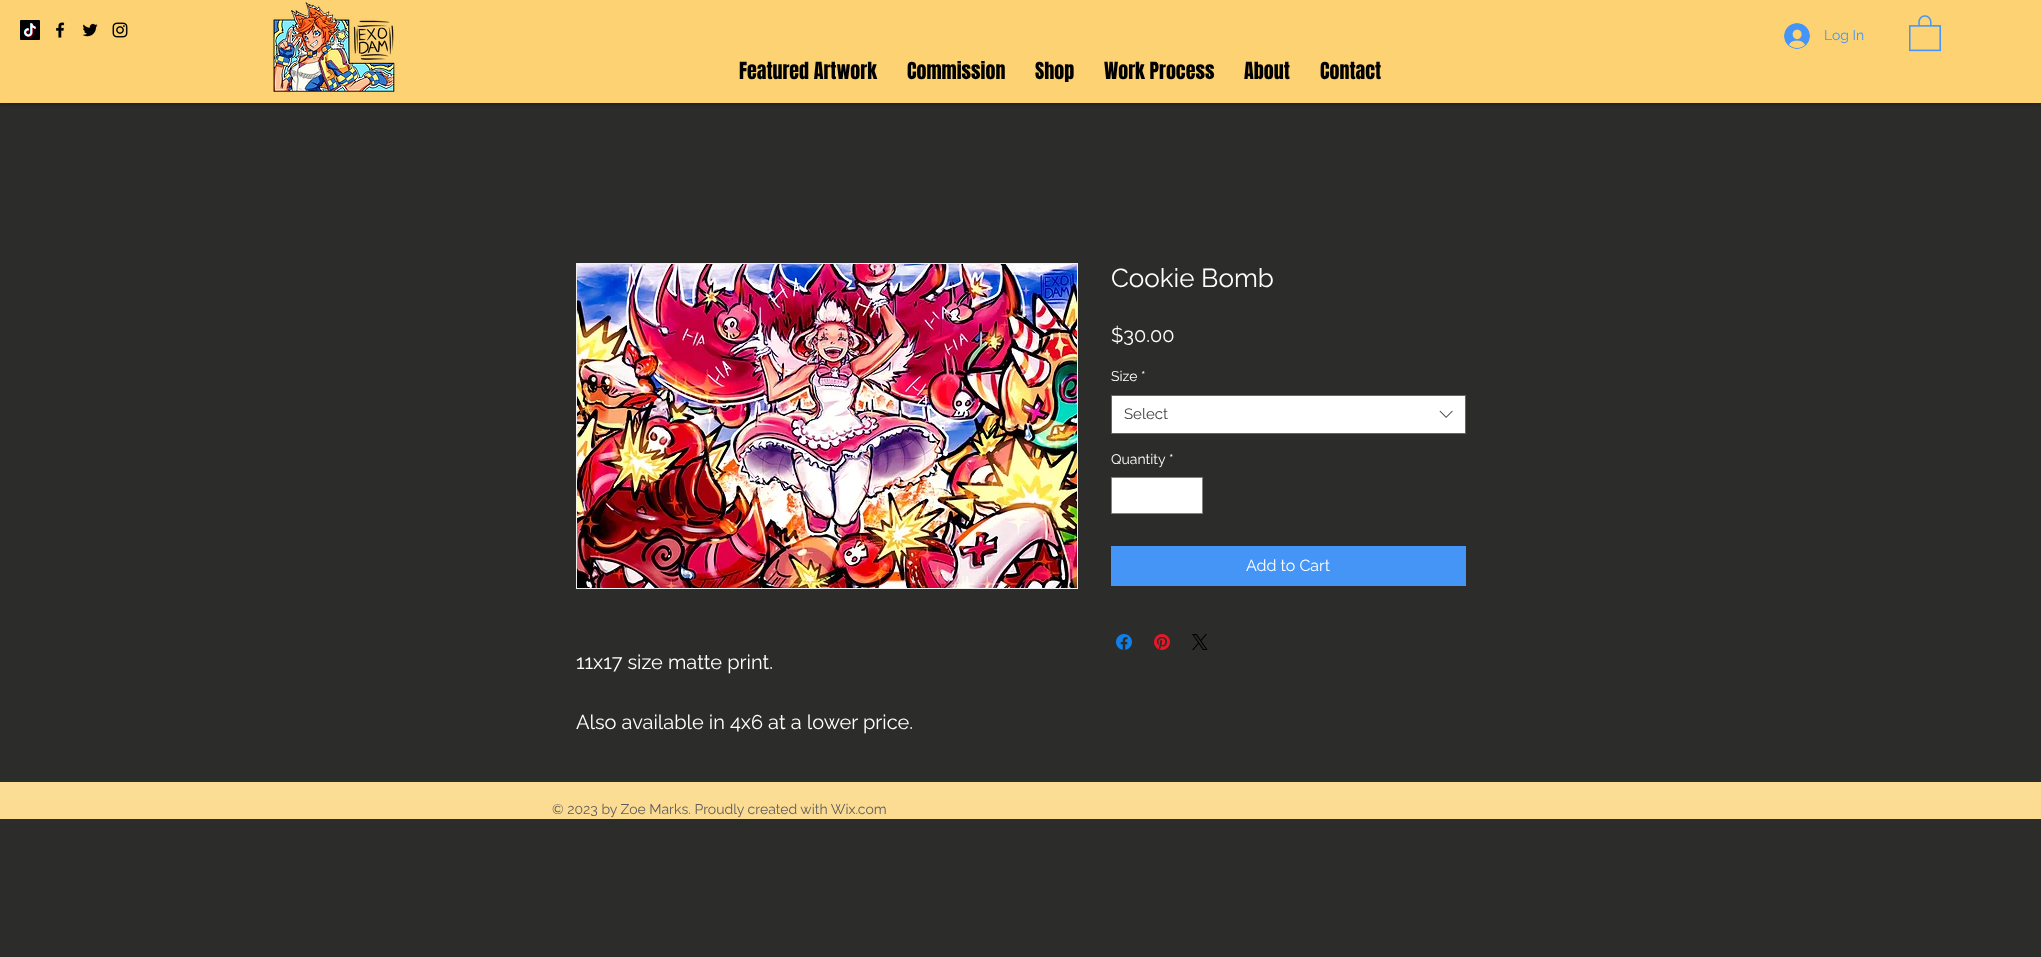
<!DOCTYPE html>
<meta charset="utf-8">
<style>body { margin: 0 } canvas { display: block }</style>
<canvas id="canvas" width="2041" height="957"></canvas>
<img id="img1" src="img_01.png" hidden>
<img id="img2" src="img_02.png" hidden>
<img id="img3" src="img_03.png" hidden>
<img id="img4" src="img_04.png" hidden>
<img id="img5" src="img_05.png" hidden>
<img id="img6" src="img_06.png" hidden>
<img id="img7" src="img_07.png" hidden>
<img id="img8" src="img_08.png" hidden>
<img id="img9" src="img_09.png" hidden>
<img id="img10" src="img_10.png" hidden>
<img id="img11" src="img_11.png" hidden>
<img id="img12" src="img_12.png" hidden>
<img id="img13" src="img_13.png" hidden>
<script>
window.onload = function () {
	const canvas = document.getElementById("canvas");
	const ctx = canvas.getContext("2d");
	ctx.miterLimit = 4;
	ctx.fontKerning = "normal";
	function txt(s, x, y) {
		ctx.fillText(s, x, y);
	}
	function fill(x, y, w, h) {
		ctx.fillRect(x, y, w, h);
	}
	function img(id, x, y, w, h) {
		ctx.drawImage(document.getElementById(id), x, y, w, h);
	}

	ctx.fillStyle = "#2C2C2B";
	fill(0, 0, 2041, 957);
	ctx.fillStyle = "rgba(0, 0, 0, 0.5)";
	ctx.filter = "blur(2.5px)";
	ctx.beginPath();
	ctx.rect(0, 0, 2041, 103);
	ctx.fill();
	ctx.filter = "none";
	ctx.fillStyle = "#FCD272";
	fill(0, 0, 2041, 103);
	img("img1", 20, 20, 20, 20);
	img("img2", 56, 22, 9, 16);
	img("img3", 82, 23, 16, 14);
	img("img4", 112, 22, 16, 16);
	img("img5", 273, 2, 127, 90);
	img("img6", 1784, 23, 26, 26);
	img("img7", 1909, 15, 32, 37);
	ctx.fillStyle = "#FFFFFF";
	ctx.beginPath();
	ctx.rect(1111.5, 395.5, 354, 38);
	ctx.fill();
	ctx.strokeStyle = "#666666";
	ctx.stroke();
	img("img8", 1439, 410, 14, 8);
	ctx.beginPath();
	ctx.rect(1111.5, 477.5, 91, 36);
	ctx.fill();
	ctx.strokeStyle = "#808080";
	ctx.stroke();
	ctx.fillStyle = "#4595F7";
	fill(1111, 546, 355, 40);
	img("img9", 1116, 634, 16, 16);
	img("img10", 1154, 634, 16, 16);
	img("img11", 1192, 634, 16, 16);
	ctx.strokeStyle = "#F1F1F1";
	ctx.strokeRect(576.5, 263.5, 501, 325);
	img("img12", 577, 264, 500, 324);
	ctx.fillStyle = "#FCD272";
	fill(0, 782, 2041, 37);
	img("img13", 0, 782, 2041, 37);
	ctx.font = "14px Raleway";
	ctx.fillStyle = "#4595F7";
	txt("Log In", 1824, 40);
	ctx.font = "20px Anton";
	ctx.fillStyle = "#000000";
	txt("Featured Artwork", 739, 79);
	txt("Commission", 907, 79);
	txt("Shop", 1035, 79);
	txt("Work Process", 1104, 79);
	txt("About", 1244, 79);
	txt("Contact", 1320, 79);
	ctx.font = "26px Raleway";
	ctx.fillStyle = "#FFFFFF";
	txt("Cookie Bomb", 1111, 287);
	ctx.font = "20px Raleway";
	txt("$30.00", 1111, 342);
	ctx.font = "14px Raleway";
	txt("Size", 1111, 381);
	txt("*", 1141, 381);
	ctx.font = "15px Raleway";
	ctx.fillStyle = "#444444";
	txt("Select", 1124, 419);
	ctx.font = "14px Raleway";
	ctx.fillStyle = "#FFFFFF";
	txt("Quantity", 1111, 464);
	txt("*", 1169, 464);
	ctx.font = "16px Raleway";
	txt("Add to Cart", 1246, 571);
	ctx.font = "20px Raleway";
	txt("11x17 size matte print.", 576, 669);
	txt("Also available in 4x6 at a lower price.", 576, 729);
	ctx.font = "14px Raleway";
	ctx.fillStyle = "#5E5D5D";
	txt("© 2023 by Zoe Marks. Proudly created with Wix.com", 552, 814);
};
</script>
